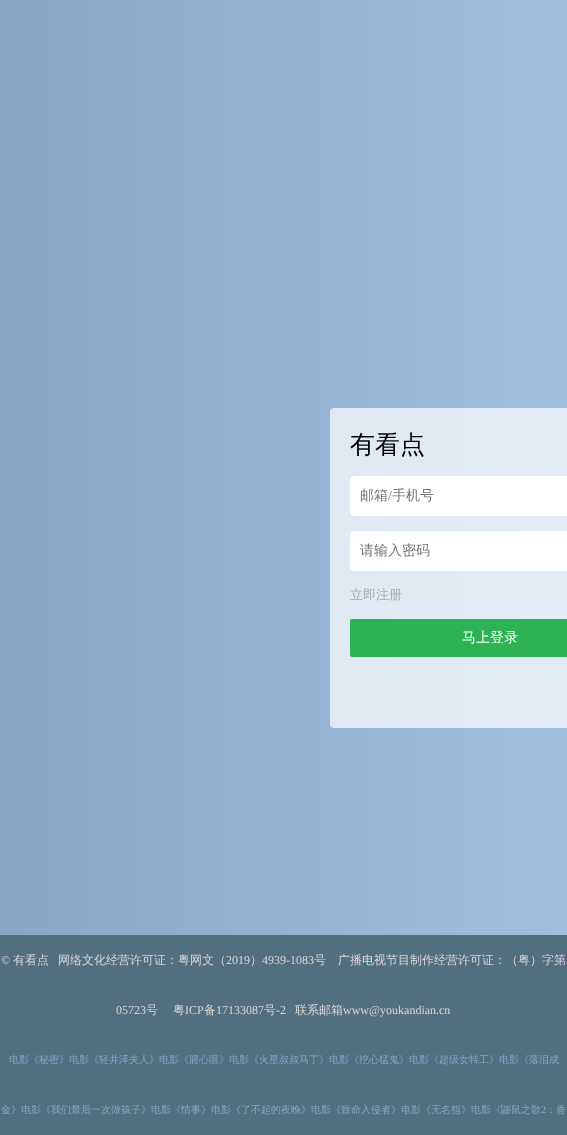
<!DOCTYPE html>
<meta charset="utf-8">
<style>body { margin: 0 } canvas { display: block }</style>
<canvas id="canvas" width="567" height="1135"></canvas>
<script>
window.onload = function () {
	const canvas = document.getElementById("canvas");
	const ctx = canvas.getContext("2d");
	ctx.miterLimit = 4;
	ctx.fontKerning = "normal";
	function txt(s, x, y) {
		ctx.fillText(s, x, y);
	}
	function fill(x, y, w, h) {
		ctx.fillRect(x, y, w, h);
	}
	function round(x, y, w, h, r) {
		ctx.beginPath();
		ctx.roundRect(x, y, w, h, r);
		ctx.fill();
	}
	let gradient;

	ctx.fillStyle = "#FFFFFF";
	fill(0, 0, 567, 1135);
	gradient = ctx.createLinearGradient(0, 568, 567, 568);
	gradient.addColorStop(0, "#89A6C6");
	gradient.addColorStop(1, "#A0BFE1");
	ctx.fillStyle = gradient;
	fill(0, 0, 567, 935);
	ctx.fillStyle = "rgba(255, 255, 255, 0.7)";
	round(330, 408, 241, 320, 4);
	ctx.fillStyle = "#FFFFFF";
	round(350, 476, 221, 40, 4);
	round(350, 531, 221, 40, 4);
	ctx.fillStyle = "#2EB354";
	round(350, 619, 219, 38, 2);
	ctx.fillStyle = "#526F80";
	fill(0, 935, 567, 200);
	ctx.font = "500 25px WenQuanYi Zen Hei";
	ctx.fillStyle = "#000000";
	txt("有看点", 350, 453);
	ctx.font = "500 14px WenQuanYi Zen Hei";
	ctx.fillStyle = "#757575";
	txt("邮箱", 360, 500);
	ctx.font = "14px Liberation Serif";
	txt("/", 388, 500);
	ctx.font = "500 14px WenQuanYi Zen Hei";
	txt("手机号", 392, 500);
	txt("请输入密码", 360, 555);
	ctx.font = "500 13px WenQuanYi Zen Hei";
	ctx.fillStyle = "#AAAAAA";
	txt("立即注册", 350, 599);
	ctx.font = "500 14px WenQuanYi Zen Hei";
	ctx.fillStyle = "#FFFFFF";
	txt("马上登录", 462, 642);
	ctx.font = "12px Liberation Serif";
	ctx.fillStyle = "#DBD6D6";
	txt("©", 1, 964);
	ctx.font = "500 12px WenQuanYi Zen Hei";
	txt("有看点", 13, 964);
	txt("网络文化经营许可证：粤网文（", 58, 964);
	ctx.font = "12px Liberation Serif";
	txt("2019", 226, 964);
	ctx.font = "500 12px WenQuanYi Zen Hei";
	txt("）", 250, 964);
	ctx.font = "12px Liberation Serif";
	txt("4939-1083", 262, 964);
	ctx.font = "500 12px WenQuanYi Zen Hei";
	txt("号", 314, 964);
	txt("广播电视节目制作经营许可证：（粤）字第", 338, 964);
	ctx.font = "12px Liberation Serif";
	txt("05723", 116, 1014);
	ctx.font = "500 12px WenQuanYi Zen Hei";
	txt("号", 146, 1014);
	txt("粤", 173, 1014);
	ctx.font = "12px Liberation Serif";
	txt("ICP", 185, 1014);
	ctx.font = "500 12px WenQuanYi Zen Hei";
	txt("备", 204, 1014);
	ctx.font = "12px Liberation Serif";
	txt("17133087", 216, 1014);
	ctx.font = "500 12px WenQuanYi Zen Hei";
	txt("号", 264, 1014);
	ctx.font = "12px Liberation Serif";
	txt("-2", 276, 1014);
	ctx.font = "500 12px WenQuanYi Zen Hei";
	txt("联系邮箱", 295, 1014);
	ctx.font = "12px Liberation Serif";
	txt("www@youkandian.cn", 343, 1014);
	ctx.font = "500 10px WenQuanYi Zen Hei";
	ctx.fillStyle = "#89A6C6";
	txt("电影《秘密》电影《轻井泽夫人》电影《腥心眼》电影《火星叔叔马丁》电影《挖心猛鬼》电影《超级女特工》电影《落泪成", 9, 1063);
	txt("金》电影《我们最后一次做孩子》电影《情事》电影《了不起的夜晚》电影《致命入侵者》电影《无名指》电影《鼹鼠之歌", 1, 1113);
	ctx.font = "10px Liberation Serif";
	txt("2", 541, 1113);
	ctx.font = "500 10px WenQuanYi Zen Hei";
	txt("：香", 546, 1113);
};
</script>
